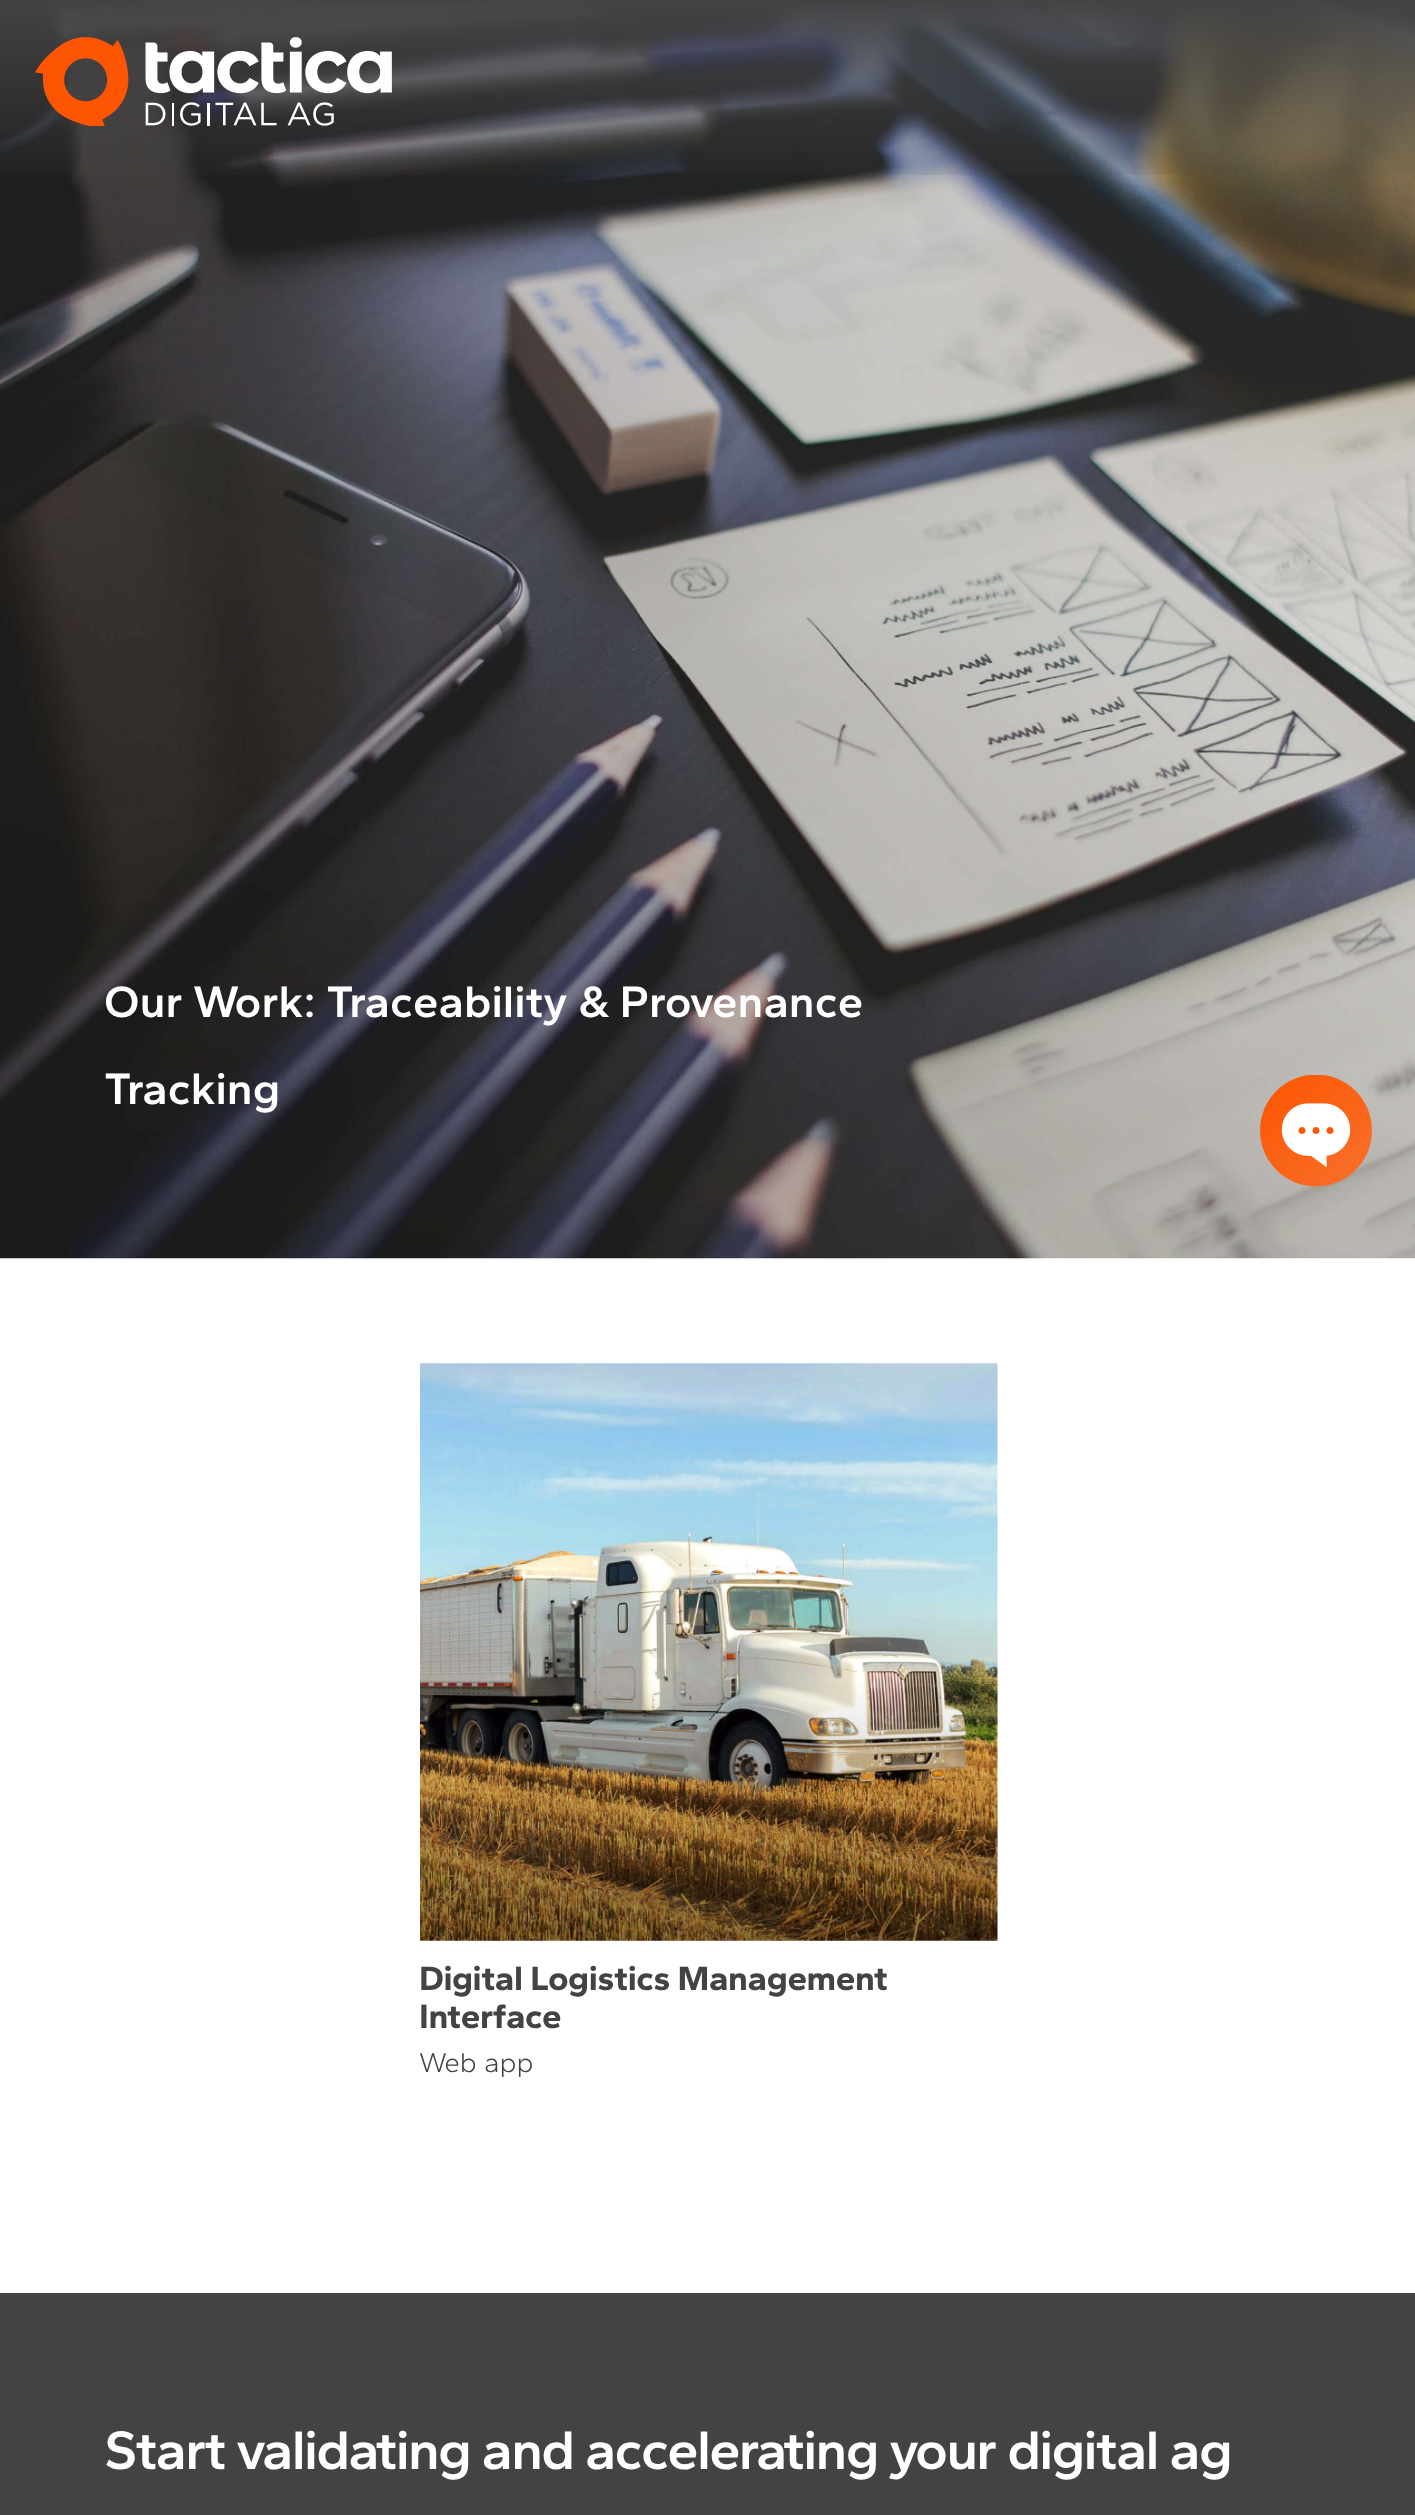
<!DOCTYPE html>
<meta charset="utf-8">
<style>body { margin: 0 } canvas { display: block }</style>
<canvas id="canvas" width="1415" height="2515"></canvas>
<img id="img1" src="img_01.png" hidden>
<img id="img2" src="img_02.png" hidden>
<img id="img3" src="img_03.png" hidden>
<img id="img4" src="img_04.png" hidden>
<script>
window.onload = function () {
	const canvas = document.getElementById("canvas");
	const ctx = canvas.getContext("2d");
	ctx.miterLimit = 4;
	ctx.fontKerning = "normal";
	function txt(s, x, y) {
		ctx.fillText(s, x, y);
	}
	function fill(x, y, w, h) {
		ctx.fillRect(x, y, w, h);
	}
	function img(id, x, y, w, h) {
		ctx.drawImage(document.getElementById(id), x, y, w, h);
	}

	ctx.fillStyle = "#FFFFFF";
	fill(0, 0, 1415, 2515);
	img("img1", 0, 0, 1415, 1259);
	img("img2", 35, 37, 357, 89);
	img("img3", 1260, 1075, 112, 112);
	img("img4", 420, 1363, 578, 578);
	ctx.fillStyle = "#434343";
	fill(0, 2293, 1415, 222);
	ctx.font = "600 45.5px Gantari";
	ctx.fillStyle = "#FFFFFF";
	txt("Our Work: Traceability & Provenance", 104, 1017);
	txt("Tracking", 104, 1104);
	ctx.letterSpacing = "-0.45px";
	ctx.font = "bold 35px Gantari";
	ctx.fillStyle = "#434343";
	txt("Digital Logistics Management", 419, 1990);
	txt("Interface", 419, 2028);
	ctx.letterSpacing = "0px";
	ctx.font = "300 28px Gantari";
	txt("Web app", 419, 2072);
	ctx.letterSpacing = "-1.75px";
	ctx.font = "600 56px Gantari";
	ctx.fillStyle = "#FFFFFF";
	txt("Start validating and accelerating your digital ag", 104, 2469);
};
</script>
